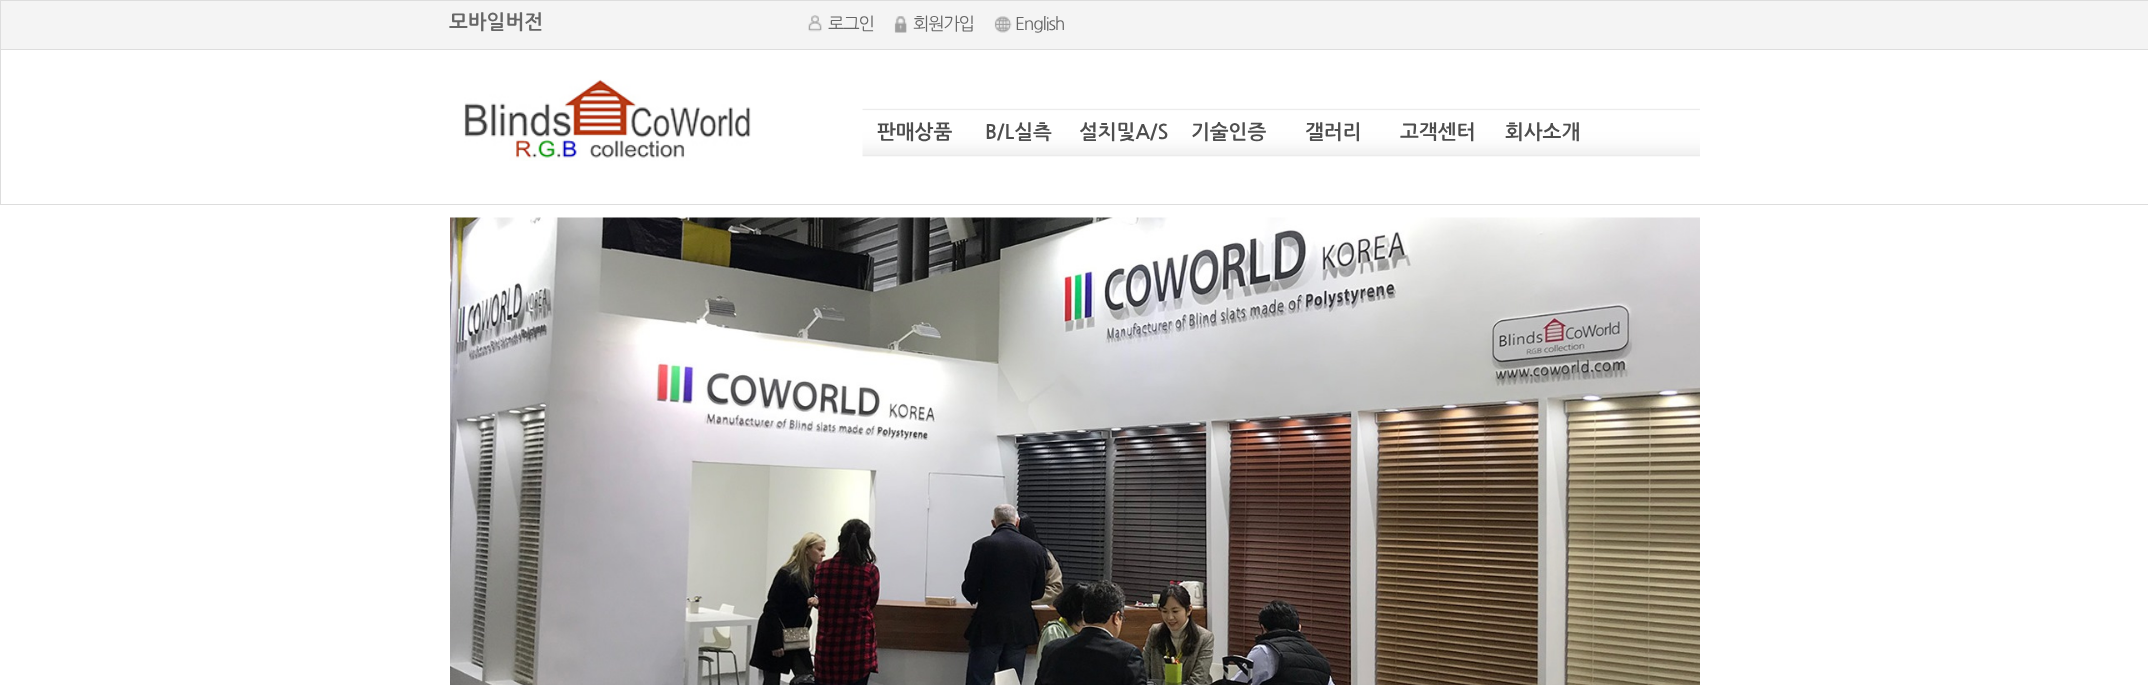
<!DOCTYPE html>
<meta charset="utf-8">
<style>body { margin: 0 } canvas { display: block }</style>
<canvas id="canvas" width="2148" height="685"></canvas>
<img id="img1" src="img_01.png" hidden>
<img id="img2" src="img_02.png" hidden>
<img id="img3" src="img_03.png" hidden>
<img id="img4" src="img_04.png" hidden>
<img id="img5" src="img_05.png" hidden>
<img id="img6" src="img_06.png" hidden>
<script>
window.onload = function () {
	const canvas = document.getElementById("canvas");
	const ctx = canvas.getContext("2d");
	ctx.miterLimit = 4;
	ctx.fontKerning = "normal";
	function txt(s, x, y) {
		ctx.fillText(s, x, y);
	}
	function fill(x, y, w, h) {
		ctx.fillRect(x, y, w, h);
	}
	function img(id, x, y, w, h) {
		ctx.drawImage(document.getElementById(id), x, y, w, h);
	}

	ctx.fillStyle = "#FFFFFF";
	fill(0, 0, 2148, 685);
	ctx.strokeStyle = "#DDDDDD";
	ctx.strokeRect(0.5, 0.5, 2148, 204);
	ctx.fillStyle = "#F4F4F4";
	fill(1, 1, 2147, 48);
	ctx.fillStyle = "#DDDDDD";
	fill(1, 49, 2147, 1);
	img("img1", 808, 15, 14, 17);
	img("img2", 894, 16, 13, 17);
	img("img3", 994, 16, 18, 17);
	img("img4", 464, 79, 287, 82);
	img("img5", 862, 108, 838, 49);
	img("img6", 450, 217, 1250, 468);
	ctx.font = "bold 20px NanumGothic";
	ctx.fillStyle = "#666666";
	txt("모바일버전", 449, 29);
	ctx.letterSpacing = "-1.25px";
	ctx.font = "17.5px NanumGothic";
	txt("로그인", 828, 30);
	txt("회원가입", 913, 30);
	txt("English", 1015, 30);
	ctx.letterSpacing = "0px";
	ctx.font = "bold 20px NanumGothic";
	ctx.fillStyle = "#4E4E4E";
	txt("판매상품", 877, 139);
	txt("B/L실측", 985, 139);
	txt("설치및A/S", 1079, 139);
	txt("기술인증", 1191, 139);
	txt("갤러리", 1305, 139);
	txt("고객센터", 1400, 139);
	txt("회사소개", 1505, 139);
};
</script>
